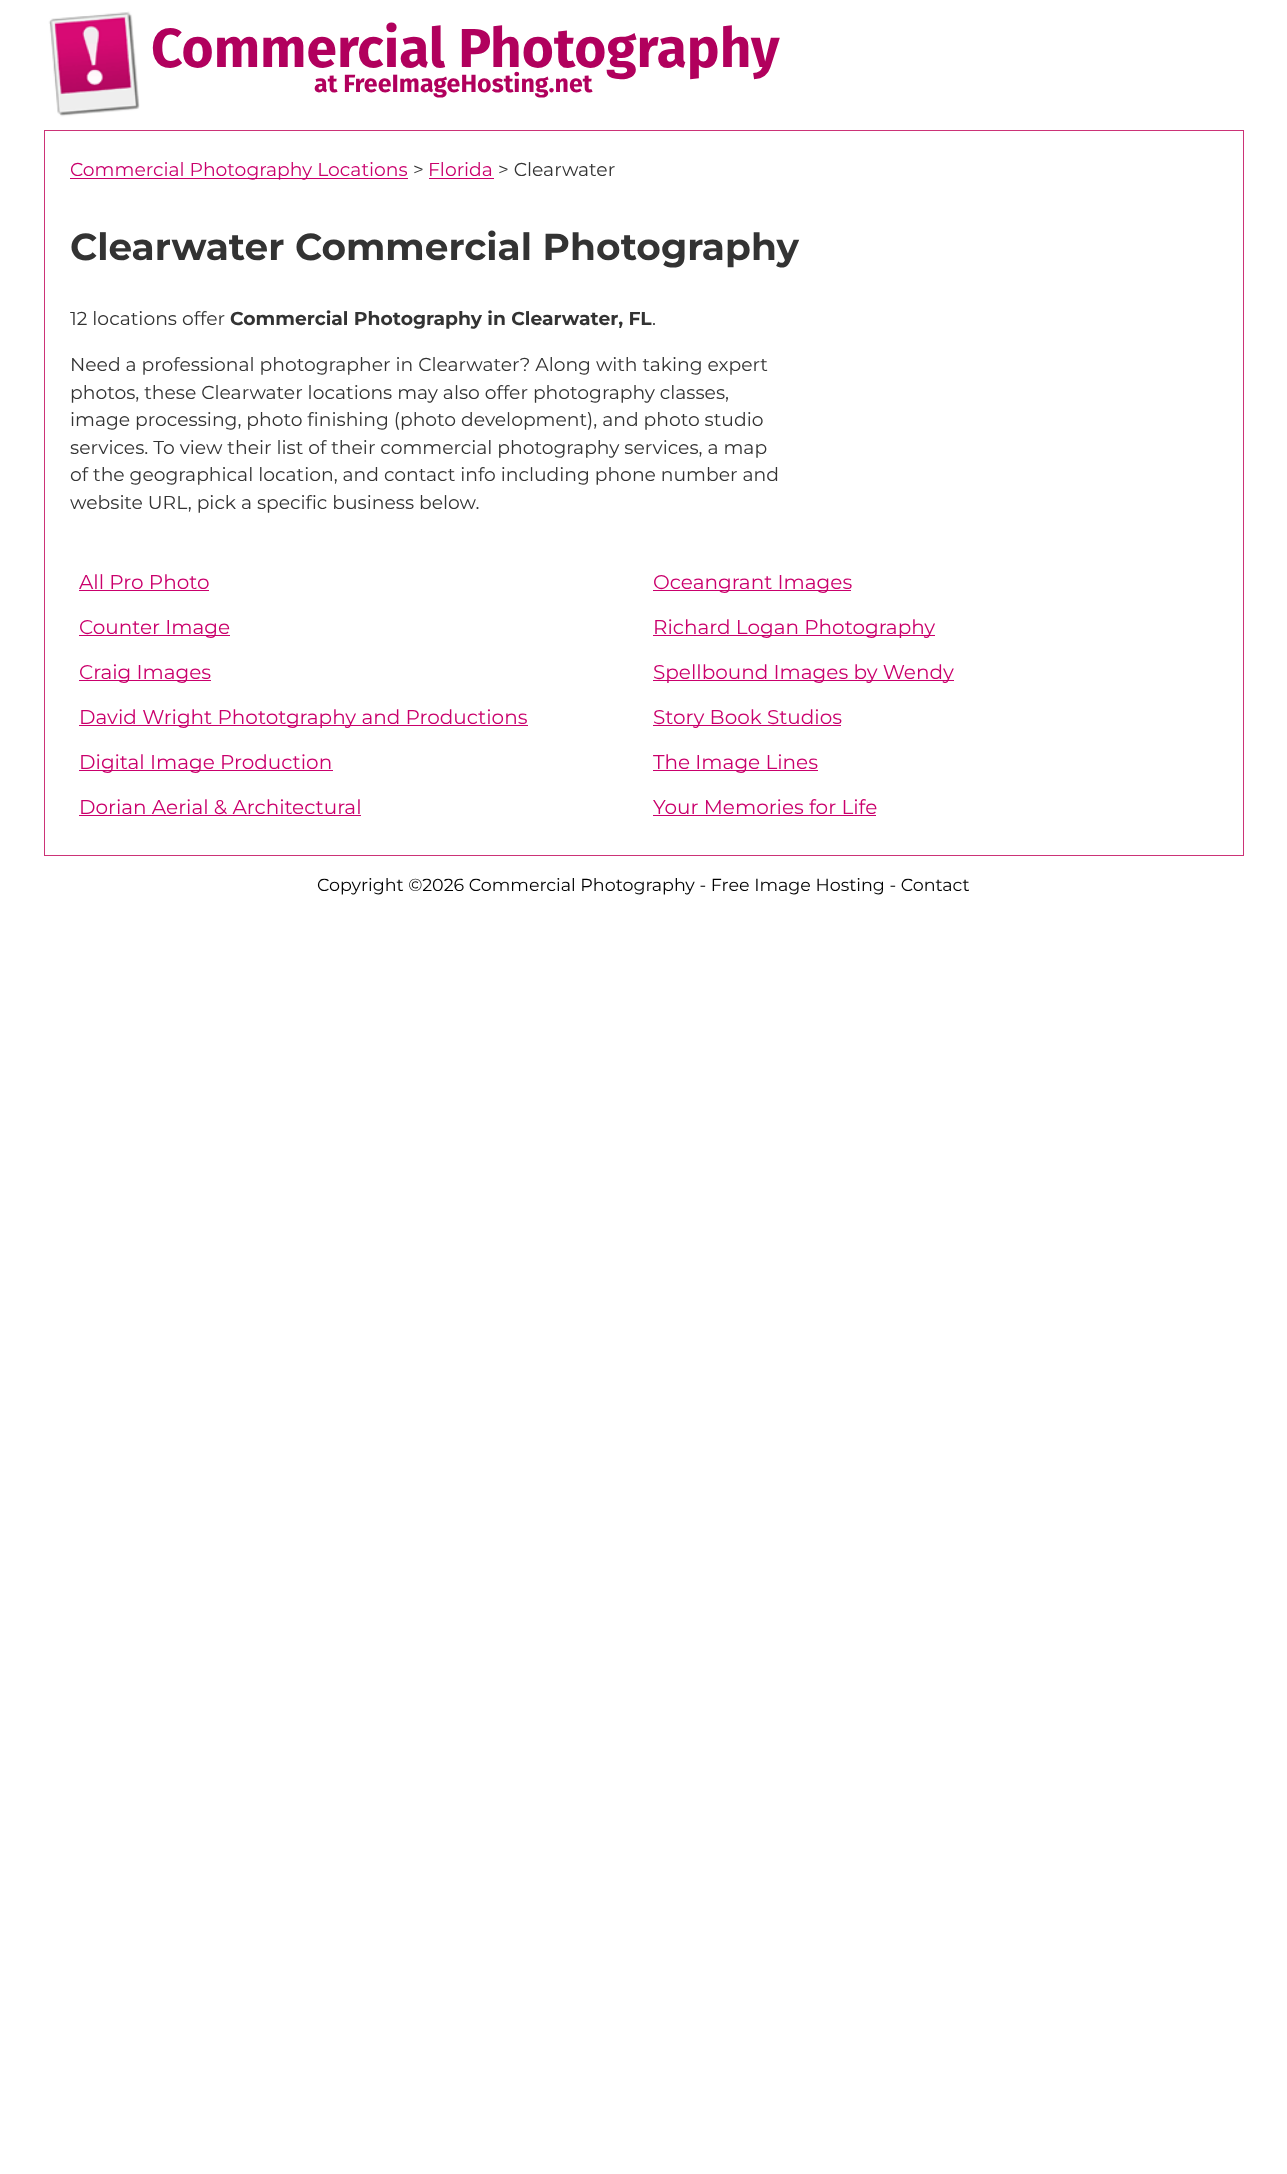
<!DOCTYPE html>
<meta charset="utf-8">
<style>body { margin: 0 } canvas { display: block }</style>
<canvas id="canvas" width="1287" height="2174"></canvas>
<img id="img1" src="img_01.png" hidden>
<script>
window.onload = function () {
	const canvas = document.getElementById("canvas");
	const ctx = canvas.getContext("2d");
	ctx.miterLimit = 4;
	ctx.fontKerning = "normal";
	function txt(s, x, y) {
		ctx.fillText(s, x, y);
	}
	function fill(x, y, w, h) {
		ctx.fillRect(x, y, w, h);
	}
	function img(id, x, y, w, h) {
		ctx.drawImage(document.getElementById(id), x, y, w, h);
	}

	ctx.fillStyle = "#FFFFFF";
	fill(0, 0, 1287, 2174);
	img("img1", 48, 11, 92, 106);
	ctx.strokeStyle = "#CC3377";
	ctx.strokeRect(44.5, 130.5, 1199, 725);
	ctx.fillStyle = "#CA006C";
	fill(70, 178, 338, 1);
	fill(429, 178, 65, 1);
	fill(79, 590, 130, 1);
	fill(653, 590, 198, 1);
	fill(79, 635, 151, 1);
	fill(653, 635, 282, 1);
	fill(79, 680, 132, 1);
	fill(653, 680, 301, 1);
	fill(79, 725, 449, 1);
	fill(653, 725, 188, 1);
	fill(79, 770, 254, 1);
	fill(653, 770, 165, 1);
	fill(79, 815, 282, 1);
	fill(653, 815, 223, 1);
	ctx.font = "bold 55px Fira Sans";
	ctx.fillStyle = "#B1005D";
	txt("Commercial Photography", 151, 67);
	ctx.font = "bold 25px Fira Sans";
	txt("at FreeImageHosting.net", 314, 92);
	ctx.font = "18.75px Montserrat";
	ctx.fillStyle = "#CA006C";
	txt("Commercial Photography Locations", 70, 176);
	ctx.fillStyle = "#333333";
	txt(">", 413, 176);
	ctx.fillStyle = "#CA006C";
	txt("Florida", 428, 176);
	ctx.fillStyle = "#333333";
	txt("> Clearwater", 498, 176);
	ctx.font = "bold 37.5px Montserrat";
	txt("Clearwater Commercial Photography", 70, 260);
	ctx.font = "18.75px Montserrat";
	txt("12 locations offer", 70, 325);
	ctx.font = "bold 18.75px Montserrat";
	txt("Commercial Photography in Clearwater, FL", 230, 325);
	ctx.font = "18.75px Montserrat";
	txt(".", 652, 325);
	txt("Need a professional photographer in Clearwater? Along with taking expert", 70, 371);
	txt("photos, these Clearwater locations may also offer photography classes,", 70, 399);
	txt("image processing, photo finishing (photo development), and photo studio", 70, 426);
	txt("services. To view their list of their commercial photography services, a map", 70, 454);
	txt("of the geographical location, and contact info including phone number and", 70, 481);
	txt("website URL, pick a specific business below.", 70, 509);
	ctx.font = "20px Montserrat";
	ctx.fillStyle = "#CA006C";
	txt("All Pro Photo", 79, 589);
	txt("Oceangrant Images", 653, 589);
	txt("Counter Image", 79, 634);
	txt("Richard Logan Photography", 653, 634);
	txt("Craig Images", 79, 679);
	txt("Spellbound Images by Wendy", 653, 679);
	txt("David Wright Phototgraphy and Productions", 79, 724);
	txt("Story Book Studios", 653, 724);
	txt("Digital Image Production", 79, 769);
	txt("The Image Lines", 653, 769);
	txt("Dorian Aerial & Architectural", 79, 814);
	txt("Your Memories for Life", 653, 814);
	ctx.font = "17.5px Montserrat";
	ctx.fillStyle = "#000000";
	txt("Copyright ©2026 Commercial Photography - Free Image Hosting - Contact", 317, 891);
};
</script>
